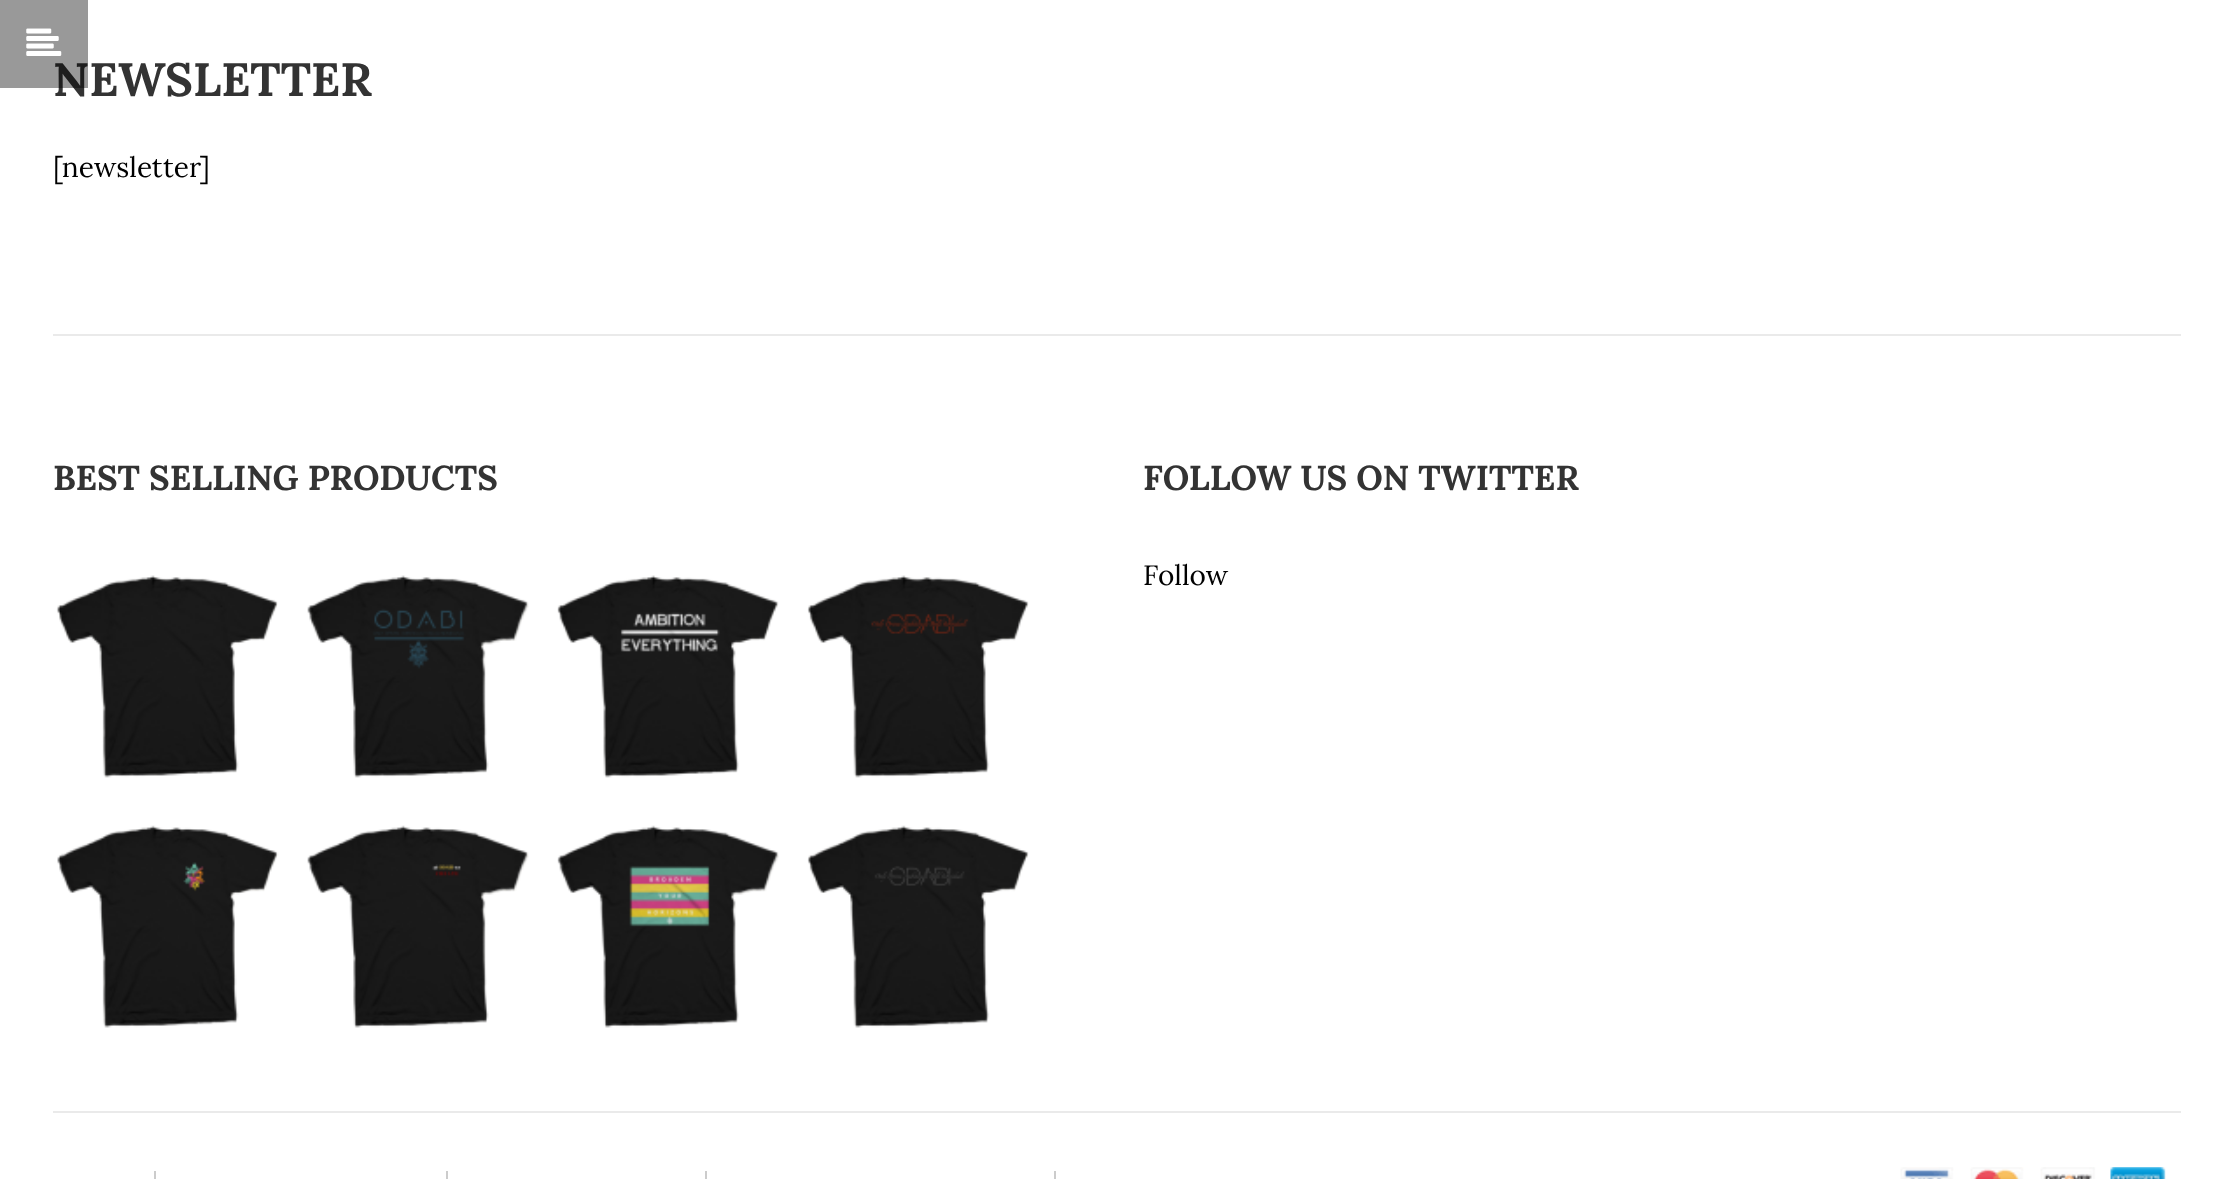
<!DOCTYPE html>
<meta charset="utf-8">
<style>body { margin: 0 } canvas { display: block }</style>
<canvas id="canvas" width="2233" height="1179"></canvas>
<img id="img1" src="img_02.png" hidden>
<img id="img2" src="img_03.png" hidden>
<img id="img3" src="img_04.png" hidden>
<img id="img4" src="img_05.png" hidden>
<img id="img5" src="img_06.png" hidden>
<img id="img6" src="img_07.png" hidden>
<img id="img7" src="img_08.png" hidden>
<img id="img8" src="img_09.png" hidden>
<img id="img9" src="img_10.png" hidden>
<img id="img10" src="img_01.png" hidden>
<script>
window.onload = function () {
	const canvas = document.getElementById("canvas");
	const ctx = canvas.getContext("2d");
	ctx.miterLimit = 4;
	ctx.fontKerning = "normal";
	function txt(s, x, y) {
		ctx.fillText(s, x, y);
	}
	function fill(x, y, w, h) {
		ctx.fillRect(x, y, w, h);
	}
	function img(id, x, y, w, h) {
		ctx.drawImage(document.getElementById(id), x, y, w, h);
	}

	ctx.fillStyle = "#FFFFFF";
	fill(0, 0, 2233, 1179);
	ctx.fillStyle = "#EAEAEA";
	fill(53, 334, 2128, 2);
	img("img1", 56, 575, 222, 203);
	img("img2", 307, 575, 222, 203);
	img("img3", 557, 575, 222, 203);
	img("img4", 807, 575, 222, 203);
	img("img5", 57, 825, 222, 203);
	img("img6", 307, 825, 222, 203);
	img("img7", 557, 825, 222, 203);
	img("img8", 807, 825, 222, 203);
	fill(53, 1111, 2128, 2);
	ctx.fillStyle = "#CCCCCC";
	fill(154, 1171, 2, 8);
	fill(446, 1171, 2, 8);
	fill(705, 1171, 2, 8);
	fill(1054, 1171, 2, 8);
	img("img9", 1900, 1167, 266, 12);
	ctx.font = "bold 46.75px Lora";
	ctx.fillStyle = "#333333";
	txt("NEWSLETTER", 53, 96);
	ctx.fillStyle = "rgba(0, 0, 0, 0.4)";
	fill(0, 0, 88, 88);
	img("img10", 26, 28, 36, 28);
	ctx.font = "28px Lora";
	ctx.fillStyle = "#000000";
	txt("[newsletter]", 53, 177);
	ctx.font = "bold 34.5px Lora";
	ctx.fillStyle = "#333333";
	txt("BEST SELLING PRODUCTS", 53, 490);
	txt("FOLLOW US ON TWITTER", 1143, 490);
	ctx.font = "28px Lora";
	ctx.fillStyle = "#000000";
	txt("Follow", 1143, 585);
};
</script>
